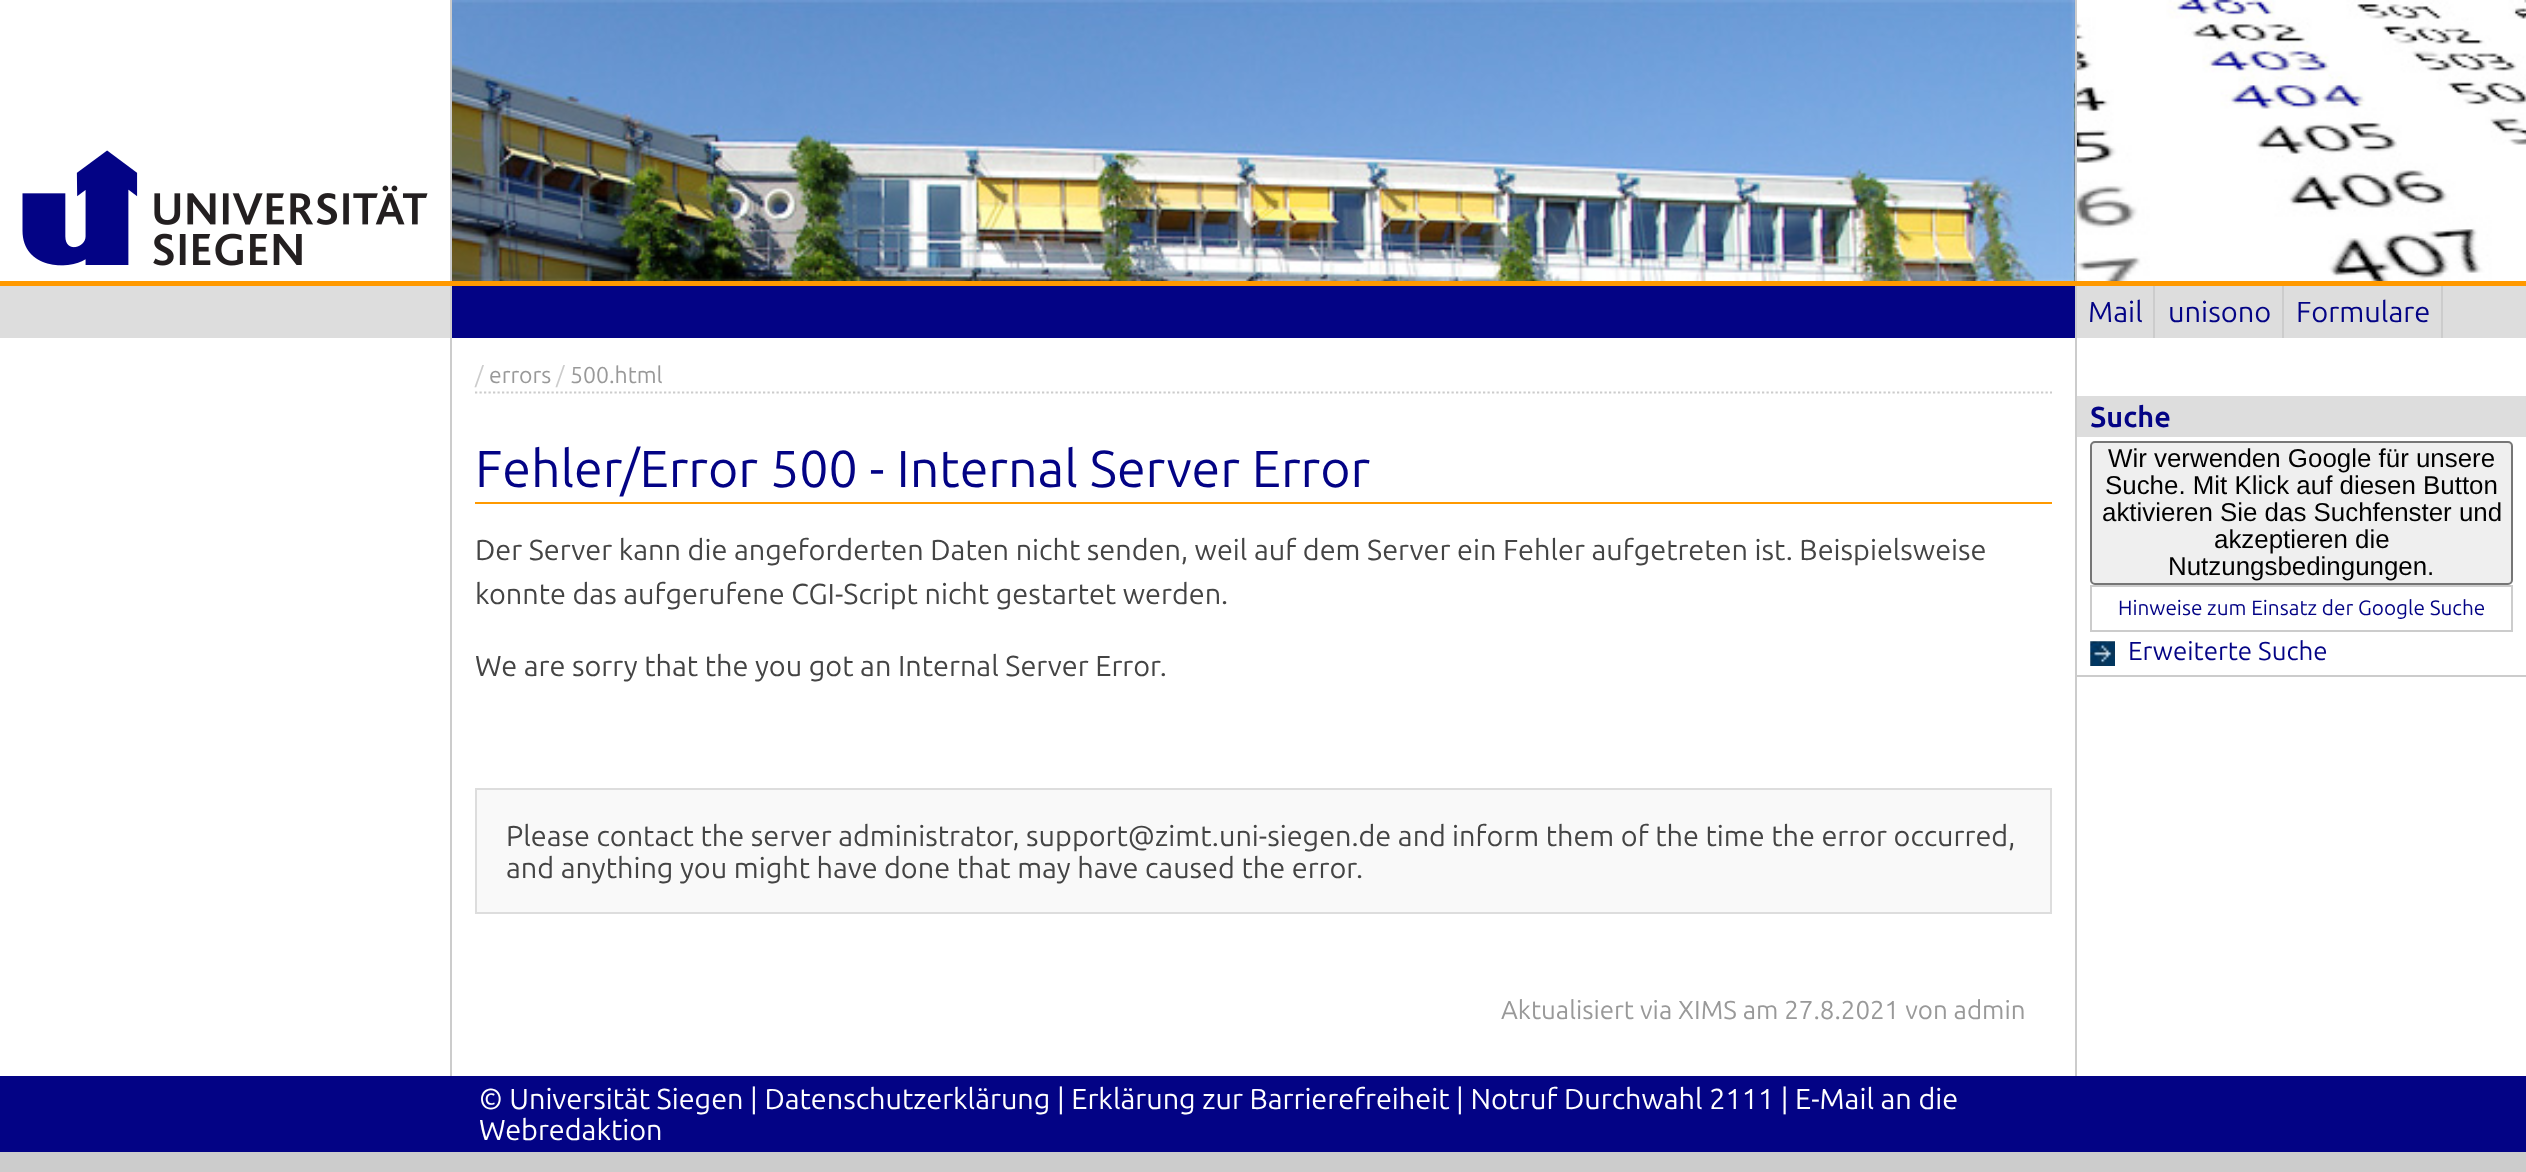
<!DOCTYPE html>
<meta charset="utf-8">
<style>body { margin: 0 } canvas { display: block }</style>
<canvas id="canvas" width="2526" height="1172"></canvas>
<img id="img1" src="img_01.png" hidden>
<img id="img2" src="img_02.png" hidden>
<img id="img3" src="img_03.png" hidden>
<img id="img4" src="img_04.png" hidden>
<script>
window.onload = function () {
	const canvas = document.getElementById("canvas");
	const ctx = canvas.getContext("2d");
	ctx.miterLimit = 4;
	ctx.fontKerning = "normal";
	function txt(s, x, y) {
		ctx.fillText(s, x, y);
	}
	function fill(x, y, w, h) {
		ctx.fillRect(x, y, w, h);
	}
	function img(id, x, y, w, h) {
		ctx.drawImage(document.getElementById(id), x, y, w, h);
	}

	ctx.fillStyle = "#CCCCCC";
	fill(0, 0, 2526, 1172);
	ctx.fillStyle = "#FFFFFF";
	fill(0, 0, 2526, 1076);
	ctx.fillStyle = "#CCCCCC";
	fill(2075, 0, 2, 1076);
	fill(450, 0, 2, 1076);
	ctx.fillStyle = "#FF9900";
	fill(0, 281, 2526, 5);
	img("img1", 22, 150, 406, 116);
	ctx.fillStyle = "#DDDDDD";
	fill(0, 286, 450, 52);
	img("img2", 452, 0, 1623, 281);
	ctx.fillStyle = "#030385";
	fill(452, 286, 1623, 52);
	ctx.beginPath();
	ctx.moveTo(475, 392.5);
	ctx.lineTo(2052, 392.5);
	ctx.strokeStyle = "#CCCCCC";
	ctx.lineWidth = 2.2;
	ctx.setLineDash([2.25, 2.25]);
	ctx.stroke();
	ctx.fillStyle = "#FF9900";
	fill(475, 502, 1577, 2);
	ctx.fillStyle = "#F9F9F9";
	ctx.beginPath();
	ctx.rect(476, 789, 1575, 124);
	ctx.fill();
	ctx.strokeStyle = "#DDDDDD";
	ctx.lineWidth = 2;
	ctx.setLineDash([]);
	ctx.stroke();
	img("img3", 2077, 0, 449, 281);
	ctx.fillStyle = "#DDDDDD";
	fill(2077, 286, 449, 52);
	ctx.fillStyle = "#CCCCCC";
	fill(2153, 286, 2, 52);
	fill(2282, 286, 2, 52);
	fill(2441, 286, 2, 52);
	ctx.fillStyle = "#DDDDDD";
	fill(2077, 396, 449, 41);
	ctx.fillStyle = "#CCCCCC";
	fill(2077, 675, 449, 2);
	ctx.fillStyle = "#EFEFEF";
	ctx.beginPath();
	ctx.roundRect(2091, 442, 421, 142, 4);
	ctx.fill();
	ctx.strokeStyle = "#767676";
	ctx.stroke();
	ctx.strokeStyle = "#CCCCCC";
	ctx.strokeRect(2091, 586, 421, 45);
	img("img4", 2090, 641, 25, 25);
	ctx.fillStyle = "#030385";
	fill(0, 1076, 2526, 76);
	ctx.font = "23px Ubuntu";
	ctx.fillStyle = "#CCCCCC";
	txt("/", 475, 383);
	ctx.fillStyle = "#999999";
	txt("errors", 489, 383);
	ctx.fillStyle = "#CCCCCC";
	txt("/", 556, 383);
	ctx.fillStyle = "#999999";
	txt("500.html", 570, 383);
	ctx.font = "51.9px Ubuntu";
	ctx.fillStyle = "#030385";
	txt("Fehler/Error 500 - Internal Server Error", 475, 487);
	ctx.font = "28.82px Ubuntu";
	ctx.fillStyle = "#444444";
	txt("Der Server kann die angeforderten Daten nicht senden, weil auf dem Server ein Fehler aufgetreten ist. Beispielsweise", 475, 560);
	txt("konnte das aufgerufene CGI-Script nicht gestartet werden.", 475, 604);
	txt("We are sorry that the you got an Internal Server Error.", 475, 676);
	txt("Please contact the server administrator, support@zimt.uni-siegen.de and", 506, 846);
	txt("inform them of the time the error occurred,", 1452, 846);
	txt("and anything you might have", 506, 878);
	txt("done that may have caused the error.", 884, 878);
	ctx.font = "25.9px Ubuntu";
	ctx.fillStyle = "#999999";
	txt("Aktualisiert via XIMS am 27.8.2021 von admin", 1501, 1019);
	ctx.font = "29px Ubuntu";
	ctx.fillStyle = "#030385";
	txt("Mail", 2088, 322);
	txt("unisono", 2168, 322);
	txt("Formulare", 2296, 322);
	ctx.font = "bold 28.82px Ubuntu";
	txt("Suche", 2090, 427);
	ctx.font = "25.9px Liberation Sans";
	ctx.fillStyle = "#000000";
	txt("Wir verwenden Google für unsere", 2108, 467);
	txt("Suche. Mit Klick auf diesen Button", 2105, 494);
	txt("aktivieren Sie das Suchfenster und", 2102, 521);
	txt("akzeptieren die", 2214, 548);
	txt("Nutzungsbedingungen.", 2168, 575);
	ctx.font = "20.75px Ubuntu";
	ctx.fillStyle = "#030385";
	txt("Hinweise zum Einsatz der Google Suche", 2118, 615);
	ctx.font = "25.9px Ubuntu";
	txt("Erweiterte Suche", 2128, 660);
	ctx.font = "28.8px Ubuntu";
	ctx.fillStyle = "#FFFFFF";
	txt("© Universität Siegen | Datenschutzerklärung | Erklärung zur Barrierefreiheit | Notruf Durchwahl 2111 | E-Mail an die", 479, 1109);
	txt("Webredaktion", 479, 1140);
};
</script>
